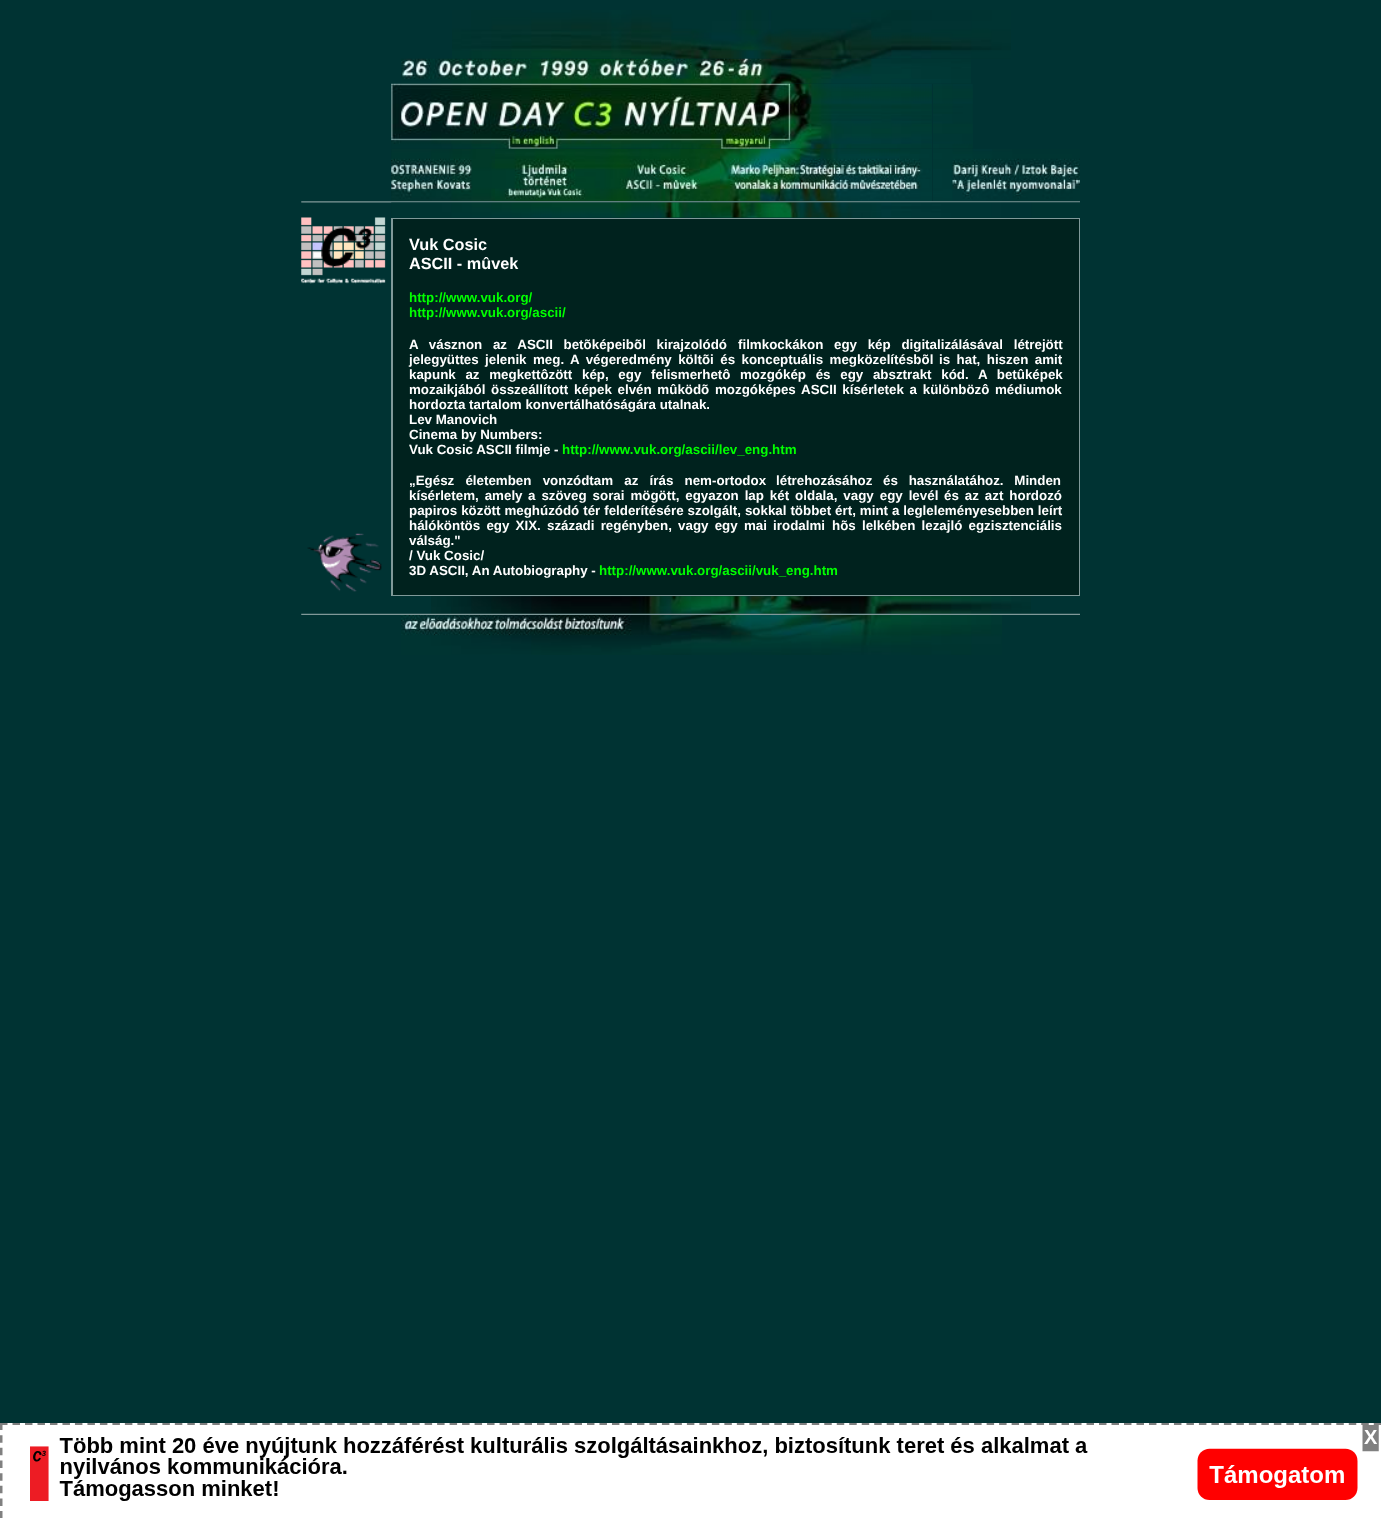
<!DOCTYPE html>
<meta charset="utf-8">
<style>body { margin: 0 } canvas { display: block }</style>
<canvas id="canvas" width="1381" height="1518"></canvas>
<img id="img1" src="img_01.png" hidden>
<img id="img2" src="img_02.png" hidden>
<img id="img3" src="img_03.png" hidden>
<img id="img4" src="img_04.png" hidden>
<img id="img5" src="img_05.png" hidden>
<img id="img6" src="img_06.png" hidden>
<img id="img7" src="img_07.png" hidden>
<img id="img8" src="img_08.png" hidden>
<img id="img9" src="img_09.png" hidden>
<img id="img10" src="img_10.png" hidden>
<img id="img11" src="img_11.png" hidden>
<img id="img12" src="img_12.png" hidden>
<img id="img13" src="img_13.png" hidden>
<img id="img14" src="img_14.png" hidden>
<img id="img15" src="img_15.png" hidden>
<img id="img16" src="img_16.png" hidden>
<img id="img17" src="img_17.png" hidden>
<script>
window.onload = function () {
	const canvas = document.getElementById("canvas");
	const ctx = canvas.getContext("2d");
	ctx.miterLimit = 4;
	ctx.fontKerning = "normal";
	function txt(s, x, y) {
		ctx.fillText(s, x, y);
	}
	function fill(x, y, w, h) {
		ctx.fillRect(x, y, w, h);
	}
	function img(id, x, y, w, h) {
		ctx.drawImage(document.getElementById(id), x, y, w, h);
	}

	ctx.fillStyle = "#003333";
	fill(0, 0, 1381, 1518);
	img("img1", 452, 10, 559, 49);
	img("img2", 401, 58, 570, 26);
	img("img3", 391, 83, 541, 66);
	img("img4", 933, 84, 40, 65);
	img("img5", 391, 149, 104, 52);
	img("img6", 495, 148, 105, 54);
	img("img7", 600, 148, 120, 54);
	img("img8", 720, 148, 212, 54);
	img("img9", 933, 149, 147, 52);
	img("img10", 301, 201, 779, 2);
	img("img11", 391, 202, 689, 16);
	img("img12", 307, 533, 75, 59);
	img("img13", 301, 217, 85, 67);
	ctx.fillStyle = "#809999";
	fill(391, 218, 689, 378);
	ctx.fillStyle = "#00221E";
	fill(393, 219, 686, 376);
	img("img14", 431, 596, 600, 18);
	img("img15", 301, 613, 779, 2);
	img("img16", 401, 615, 601, 40);
	img("img17", 0, 1423, 1381, 95);
	ctx.font = "bold 16.25px Liberation Sans";
	ctx.fillStyle = "#FFFFFF";
	txt("Vuk Cosic", 409, 250);
	txt("ASCII - mûvek", 409, 269);
	ctx.font = "bold 13.35px Liberation Sans";
	ctx.fillStyle = "#00FF00";
	txt("http://www.vuk.org/", 409, 302);
	txt("http://www.vuk.org/ascii/", 409, 317);
	ctx.wordSpacing = "7px";
	ctx.fillStyle = "#FFFFFF";
	txt("A vásznon az ASCII betõképeibõl kirajzolódó", 409, 349);
	txt("filmkockákon egy kép digitalizálásával létrejött", 738, 349);
	ctx.wordSpacing = "0px";
	txt("jelegyüttes", 409, 364);
	ctx.wordSpacing = "2.75px";
	txt("jelenik meg. A végeredmény költõi és konceptuális megközelítésbõl", 485, 364);
	txt("is hat, hiszen amit", 939, 364);
	ctx.wordSpacing = "6px";
	txt("kapunk az megkettôzött kép, egy felismerhetô", 409, 379);
	txt("mozgókép és egy absztrakt kód. A betûképek", 740, 379);
	ctx.wordSpacing = "2px";
	txt("mozaikjából összeállított", 409, 394);
	txt("képek elvén mûködõ mozgóképes ASCII kísérletek a különbözô", 574, 394);
	ctx.wordSpacing = "0px";
	txt("médiumok", 995, 394);
	txt("hordozta tartalom konvertálhatóságára utalnak.", 409, 409);
	txt("Lev Manovich", 409, 424);
	txt("Cinema by Numbers:", 409, 439);
	txt("Vuk Cosic ASCII filmje -", 409, 454);
	ctx.fillStyle = "#00FF00";
	txt("http://www.vuk.org/ascii/lev_eng.htm", 562, 454);
	ctx.wordSpacing = "7.5px";
	ctx.fillStyle = "#FFFFFF";
	txt("„Egész életemben vonzódtam az írás nem-ortodox", 409, 485);
	ctx.wordSpacing = "7px";
	txt("létrehozásához és használatához. Minden", 776, 485);
	ctx.wordSpacing = "2.25px";
	txt("kísérletem, amely", 409, 500);
	txt("a szöveg sorai mögött, egyazon lap két oldala, vagy egy levél", 528, 500);
	txt("és az azt hordozó", 944, 500);
	ctx.wordSpacing = "0.25px";
	txt("papiros között meghúzódó tér felderítésére szolgált, sokkal többet ért, mint a legleleményesebben leírt", 409, 515);
	ctx.wordSpacing = "2.5px";
	txt("hálóköntös egy XIX. századi regényben, vagy egy mai irodalmi", 409, 530);
	txt("hõs lelkében lezajló egzisztenciális", 832, 530);
	ctx.wordSpacing = "0px";
	txt("válság.\"", 409, 545);
	txt("/ Vuk Cosic/", 409, 560);
	txt("3D ASCII, An Autobiography -", 409, 575);
	ctx.fillStyle = "#00FF00";
	txt("http://www.vuk.org/ascii/vuk_eng.htm", 599, 575);
};
</script>
